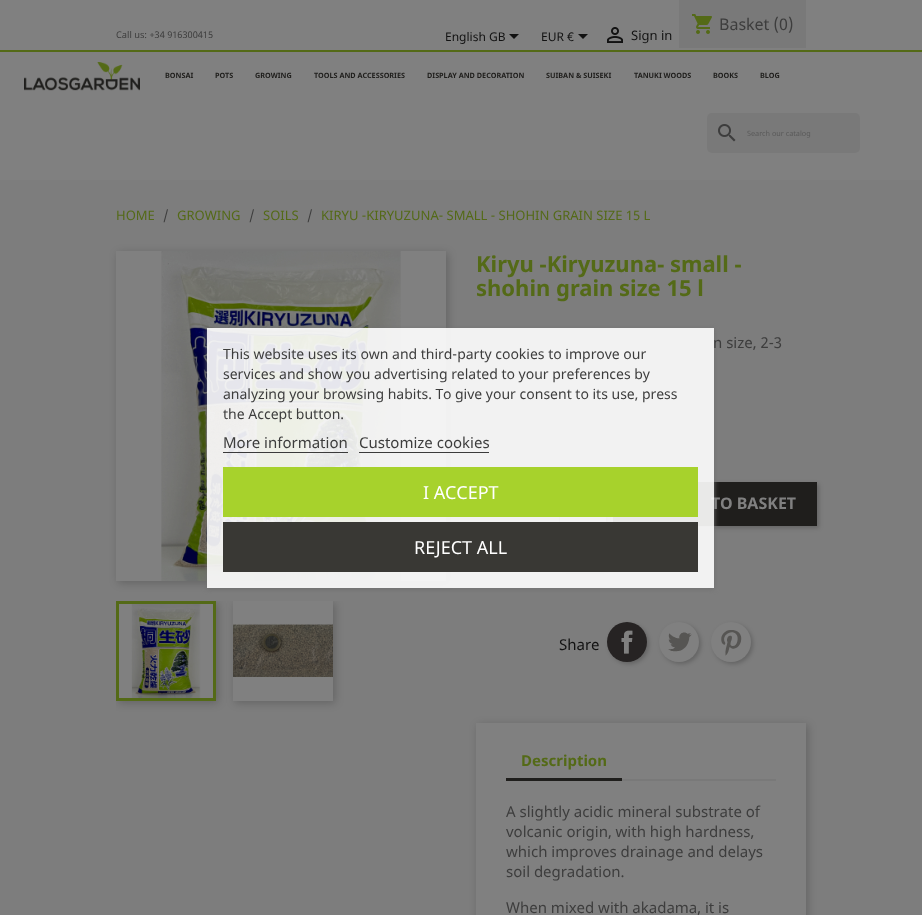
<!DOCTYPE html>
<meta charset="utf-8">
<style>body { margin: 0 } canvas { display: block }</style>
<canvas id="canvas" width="922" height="915"></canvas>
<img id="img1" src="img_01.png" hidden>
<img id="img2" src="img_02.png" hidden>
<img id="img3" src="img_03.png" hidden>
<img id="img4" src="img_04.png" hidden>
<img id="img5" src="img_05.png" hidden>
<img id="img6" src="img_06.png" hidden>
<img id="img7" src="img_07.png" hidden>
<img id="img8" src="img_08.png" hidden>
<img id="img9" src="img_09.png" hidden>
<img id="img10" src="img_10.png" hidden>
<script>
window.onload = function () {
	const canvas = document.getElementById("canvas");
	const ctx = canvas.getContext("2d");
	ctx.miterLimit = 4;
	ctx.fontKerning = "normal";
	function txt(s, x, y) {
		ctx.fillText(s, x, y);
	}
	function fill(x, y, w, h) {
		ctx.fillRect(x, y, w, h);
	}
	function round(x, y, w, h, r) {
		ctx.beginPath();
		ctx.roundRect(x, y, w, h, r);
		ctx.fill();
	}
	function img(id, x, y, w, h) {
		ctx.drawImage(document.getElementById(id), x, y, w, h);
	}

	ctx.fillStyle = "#808080";
	fill(0, 0, 922, 915);
	ctx.fillStyle = "#546A17";
	fill(0, 50, 922, 2);
	ctx.fillStyle = "#797979";
	fill(679, 0, 127, 48);
	img("img1", 692, 14, 20, 20);
	ctx.fillStyle = "#121212";
	ctx.beginPath();
	ctx.moveTo(509, 34);
	ctx.lineTo(519, 34);
	ctx.lineTo(514, 39);
	ctx.closePath();
	ctx.fill();
	ctx.beginPath();
	ctx.moveTo(578, 34);
	ctx.lineTo(588, 34);
	ctx.lineTo(583, 39);
	ctx.closePath();
	ctx.fill();
	img("img2", 607, 27, 16, 16);
	img("img3", 24, 62, 116, 29);
	ctx.fillStyle = "#797979";
	round(707, 113, 153, 40, 5);
	img("img4", 718, 124, 18, 18);
	ctx.fillStyle = "#7D7D7D";
	fill(0, 180, 922, 735);
	ctx.fillStyle = "rgba(0, 0, 0, 0.2)";
	ctx.filter = "blur(4px)";
	ctx.beginPath();
	ctx.rect(118, 253, 330, 330);
	ctx.fill();
	ctx.filter = "none";
	ctx.fillStyle = "#808080";
	fill(116, 251, 330, 330);
	img("img5", 161, 251, 240, 330);
	ctx.save();
	ctx.beginPath();
	ctx.rect(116, 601, 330, 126);
	ctx.clip();
	ctx.fillStyle = "rgba(0, 0, 0, 0.2)";
	ctx.filter = "blur(4px)";
	ctx.beginPath();
	ctx.rect(118, 603, 100, 100);
	ctx.fill();
	ctx.filter = "none";
	ctx.filter = "blur(4px)";
	ctx.beginPath();
	ctx.rect(235, 603, 100, 100);
	ctx.fill();
	ctx.filter = "none";
	ctx.restore();
	ctx.strokeStyle = "#546A17";
	ctx.lineWidth = 3;
	ctx.strokeRect(117.5, 602.5, 97, 97);
	img("img6", 233, 601, 100, 100);
	img("img7", 119, 604, 94, 94);
	ctx.fillStyle = "rgba(0, 0, 0, 0.2)";
	ctx.filter = "blur(2px)";
	ctx.beginPath();
	ctx.rect(615, 484, 204, 44);
	ctx.fill();
	ctx.filter = "none";
	ctx.fillStyle = "#1F1E1C";
	fill(613, 482, 204, 44);
	ctx.fillStyle = "rgba(0, 0, 0, 0.2)";
	ctx.filter = "blur(2px)";
	ctx.beginPath();
	ctx.rect(561, 484, 48, 88);
	ctx.fill();
	ctx.filter = "none";
	ctx.fillStyle = "#808080";
	fill(560, 517, 46, 5);
	ctx.strokeStyle = "#606060";
	ctx.lineWidth = 1;
	ctx.strokeRect(559.5, 482.5, 47, 43);
	ctx.fillStyle = "rgba(0, 0, 0, 0.2)";
	ctx.filter = "blur(2px)";
	ctx.beginPath();
	ctx.roundRect(609, 624, 40, 40, 20);
	ctx.fill();
	ctx.filter = "none";
	ctx.fillStyle = "#262323";
	ctx.beginPath();
	ctx.arc(627, 642, 20, 0, Math.PI * 2);
	ctx.fill();
	img("img8", 621, 630, 12, 24);
	ctx.fillStyle = "rgba(0, 0, 0, 0.2)";
	ctx.filter = "blur(2px)";
	ctx.beginPath();
	ctx.roundRect(661, 624, 40, 40, 20);
	ctx.fill();
	ctx.filter = "none";
	ctx.fillStyle = "#808080";
	ctx.beginPath();
	ctx.arc(679, 642, 20, 0, Math.PI * 2);
	ctx.fill();
	img("img9", 668, 632, 24, 20);
	ctx.fillStyle = "rgba(0, 0, 0, 0.2)";
	ctx.filter = "blur(2px)";
	ctx.beginPath();
	ctx.roundRect(713, 624, 40, 40, 20);
	ctx.fill();
	ctx.filter = "none";
	ctx.fillStyle = "#808080";
	ctx.beginPath();
	ctx.arc(731, 642, 20, 0, Math.PI * 2);
	ctx.fill();
	img("img10", 721, 630, 21, 26);
	ctx.fillStyle = "rgba(0, 0, 0, 0.2)";
	ctx.filter = "blur(4px)";
	ctx.beginPath();
	ctx.rect(478, 725, 330, 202);
	ctx.fill();
	ctx.filter = "none";
	ctx.fillStyle = "#808080";
	fill(476, 723, 330, 192);
	ctx.fillStyle = "#797979";
	fill(622, 779, 154, 2);
	ctx.fillStyle = "#1F1E1C";
	fill(506, 778, 116, 3);
	ctx.save();
	ctx.beginPath();
	ctx.moveTo(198, 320);
	ctx.lineTo(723, 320);
	ctx.lineTo(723, 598);
	ctx.lineTo(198, 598);
	ctx.closePath();
	ctx.moveTo(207, 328);
	ctx.lineTo(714, 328);
	ctx.lineTo(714, 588);
	ctx.lineTo(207, 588);
	ctx.closePath();
	ctx.clip("evenodd");
	ctx.fillStyle = "#707070";
	ctx.filter = "blur(2.5px)";
	ctx.beginPath();
	ctx.rect(207, 329, 507, 260);
	ctx.fill();
	ctx.filter = "none";
	ctx.restore();
	ctx.font = "9.25px Noto Sans";
	ctx.fillStyle = "#3D3D3D";
	txt("Call us: +34 916300415", 116, 38);
	ctx.font = "16px Noto Sans";
	txt("Basket (0)", 719, 30);
	ctx.font = "12px Noto Sans";
	ctx.fillStyle = "#121212";
	txt("English GB", 445, 41);
	txt("EUR €", 541, 41);
	ctx.font = "13px Noto Sans";
	txt("Sign in", 631, 40);
	ctx.font = "bold 7.25px Noto Sans";
	ctx.fillStyle = "#1F1E1C";
	txt("BONSAI", 165, 78);
	txt("POTS", 215, 78);
	txt("GROWING", 255, 78);
	txt("TOOLS AND ACCESSORIES", 314, 78);
	txt("DISPLAY AND DECORATION", 427, 78);
	txt("SUIBAN & SUISEKI", 546, 78);
	txt("TANUKI WOODS", 634, 78);
	txt("BOOKS", 713, 78);
	txt("BLOG", 760, 78);
	ctx.font = "7.25px Noto Sans";
	ctx.fillStyle = "#595959";
	txt("Search our catalog", 747, 136);
	ctx.font = "13px Noto Sans";
	ctx.fillStyle = "#546A17";
	txt("HOME", 116, 220);
	ctx.fillStyle = "#3D3D3D";
	txt("/", 163, 220);
	ctx.fillStyle = "#546A17";
	txt("GROWING", 177, 220);
	ctx.fillStyle = "#3D3D3D";
	txt("/", 249, 220);
	ctx.fillStyle = "#546A17";
	txt("SOILS", 263, 220);
	ctx.fillStyle = "#3D3D3D";
	txt("/", 307, 220);
	ctx.fillStyle = "#546A17";
	txt("KIRYU -KIRYUZUNA- SMALL - SHOHIN GRAIN SIZE 15 L", 321, 220);
	ctx.font = "bold 22px Noto Sans";
	txt("Kiryu -Kiryuzuna- small -", 476, 272);
	txt("shohin grain size 15 l", 476, 296);
	ctx.font = "15px Noto Sans";
	ctx.fillStyle = "#3D3D3D";
	txt("n size, 2-3", 713, 348);
	ctx.font = "bold 16px Noto Sans";
	ctx.fillStyle = "#808080";
	txt("TO BASKET", 711, 509);
	ctx.font = "15px Noto Sans";
	ctx.fillStyle = "#121212";
	txt("Share", 559, 650);
	ctx.font = "bold 15px Noto Sans";
	ctx.fillStyle = "#546A17";
	txt("Description", 521, 766);
	ctx.font = "15px Noto Sans";
	ctx.fillStyle = "#3D3D3D";
	txt("A slightly acidic mineral substrate of", 506, 817);
	txt("volcanic origin, with high hardness,", 506, 837);
	txt("which improves drainage and delays", 506, 857);
	txt("soil degradation.", 506, 877);
	txt("When mixed with akadama, it is", 506, 913);
	ctx.fillStyle = "rgba(255, 255, 255, 0.9)";
	fill(207, 328, 507, 260);
	ctx.font = "14px Noto Sans";
	ctx.fillStyle = "#3D3D3D";
	txt("This website uses its own and third-party cookies to improve our", 223, 359);
	txt("services and show you advertising related to your preferences by", 223, 379);
	txt("analyzing your browsing habits. To give your consent to its use, press", 223, 399);
	txt("the Accept button.", 223, 419);
	ctx.font = "15px Noto Sans";
	txt("More information", 223, 448);
	ctx.fillStyle = "#3B3B3B";
	fill(223, 452, 125, 1);
	ctx.fillStyle = "#3D3D3D";
	txt("Customize cookies", 359, 448);
	ctx.fillStyle = "#3B3B3B";
	fill(359, 452, 130, 1);
	ctx.fillStyle = "#A7D22C";
	fill(223, 467, 475, 50);
	ctx.font = "18px Noto Sans";
	ctx.fillStyle = "#FFFFFF";
	txt("I ACCEPT", 423, 499);
	ctx.fillStyle = "#393834";
	fill(223, 522, 475, 50);
	ctx.fillStyle = "#FFFFFF";
	txt("REJECT ALL", 414, 554);
};
</script>
